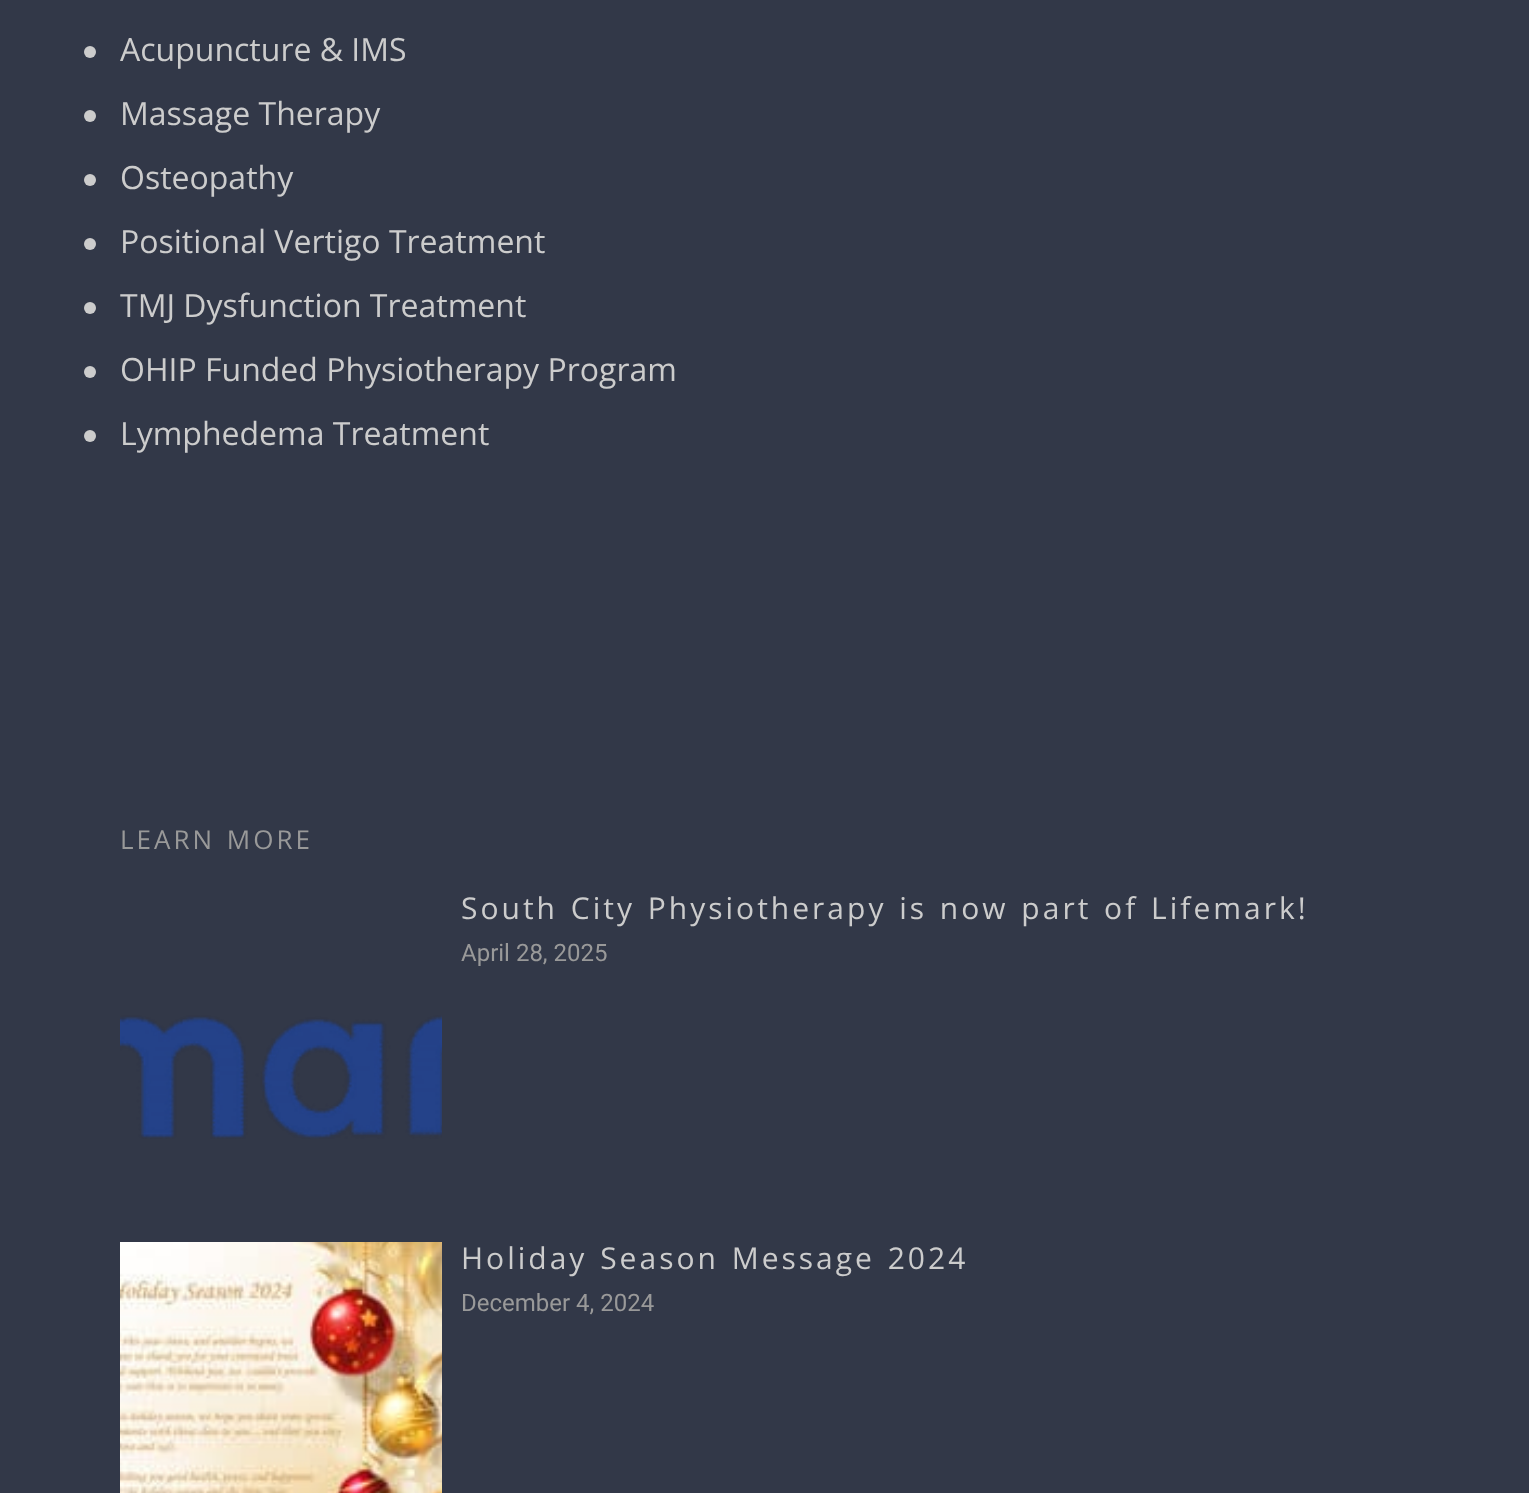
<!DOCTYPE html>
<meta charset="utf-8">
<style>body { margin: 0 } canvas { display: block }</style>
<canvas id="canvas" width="1529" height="1493"></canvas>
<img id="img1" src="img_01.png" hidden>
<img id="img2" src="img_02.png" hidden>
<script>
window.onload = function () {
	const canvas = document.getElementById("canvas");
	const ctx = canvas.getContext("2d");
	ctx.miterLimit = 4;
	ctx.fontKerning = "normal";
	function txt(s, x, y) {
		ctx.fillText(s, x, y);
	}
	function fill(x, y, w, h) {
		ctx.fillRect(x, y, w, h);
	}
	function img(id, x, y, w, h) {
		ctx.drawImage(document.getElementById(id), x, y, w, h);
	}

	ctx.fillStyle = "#323848";
	fill(0, 0, 1529, 1493);
	ctx.fillStyle = "#CCCCCC";
	ctx.beginPath();
	ctx.arc(90, 52, 6, 0, Math.PI * 2);
	ctx.fill();
	ctx.beginPath();
	ctx.arc(90, 116, 6, 0, Math.PI * 2);
	ctx.fill();
	ctx.beginPath();
	ctx.arc(90, 180, 6, 0, Math.PI * 2);
	ctx.fill();
	ctx.beginPath();
	ctx.arc(90, 244, 6, 0, Math.PI * 2);
	ctx.fill();
	ctx.beginPath();
	ctx.arc(90, 308, 6, 0, Math.PI * 2);
	ctx.fill();
	ctx.beginPath();
	ctx.arc(90, 372, 6, 0, Math.PI * 2);
	ctx.fill();
	ctx.beginPath();
	ctx.arc(90, 436, 6, 0, Math.PI * 2);
	ctx.fill();
	img("img1", 120, 1015, 322, 124);
	img("img2", 120, 1242, 322, 251);
	ctx.font = "32px Open Sans";
	txt("Acupuncture & IMS", 120, 61);
	txt("Massage Therapy", 120, 125);
	txt("Osteopathy", 120, 189);
	txt("Positional Vertigo Treatment", 120, 253);
	txt("TMJ Dysfunction Treatment", 120, 317);
	txt("OHIP Funded Physiotherapy Program", 120, 381);
	txt("Lymphedema Treatment", 120, 445);
	ctx.letterSpacing = "3px";
	ctx.wordSpacing = "2px";
	ctx.font = "26px Open Sans";
	ctx.fillStyle = "#999999";
	txt("LEARN MORE", 120, 849);
	ctx.font = "30px Open Sans";
	ctx.fillStyle = "#CCCCCC";
	txt("South City Physiotherapy is now part of Lifemark!", 461, 919);
	ctx.letterSpacing = "0px";
	ctx.wordSpacing = "0px";
	ctx.font = "24px Roboto";
	ctx.fillStyle = "#999999";
	txt("April 28, 2025", 461, 961);
	ctx.letterSpacing = "3px";
	ctx.wordSpacing = "2px";
	ctx.font = "30px Open Sans";
	ctx.fillStyle = "#CCCCCC";
	txt("Holiday Season Message 2024", 461, 1269);
	ctx.letterSpacing = "0px";
	ctx.wordSpacing = "0px";
	ctx.font = "24px Roboto";
	ctx.fillStyle = "#999999";
	txt("December 4, 2024", 461, 1311);
};
</script>
